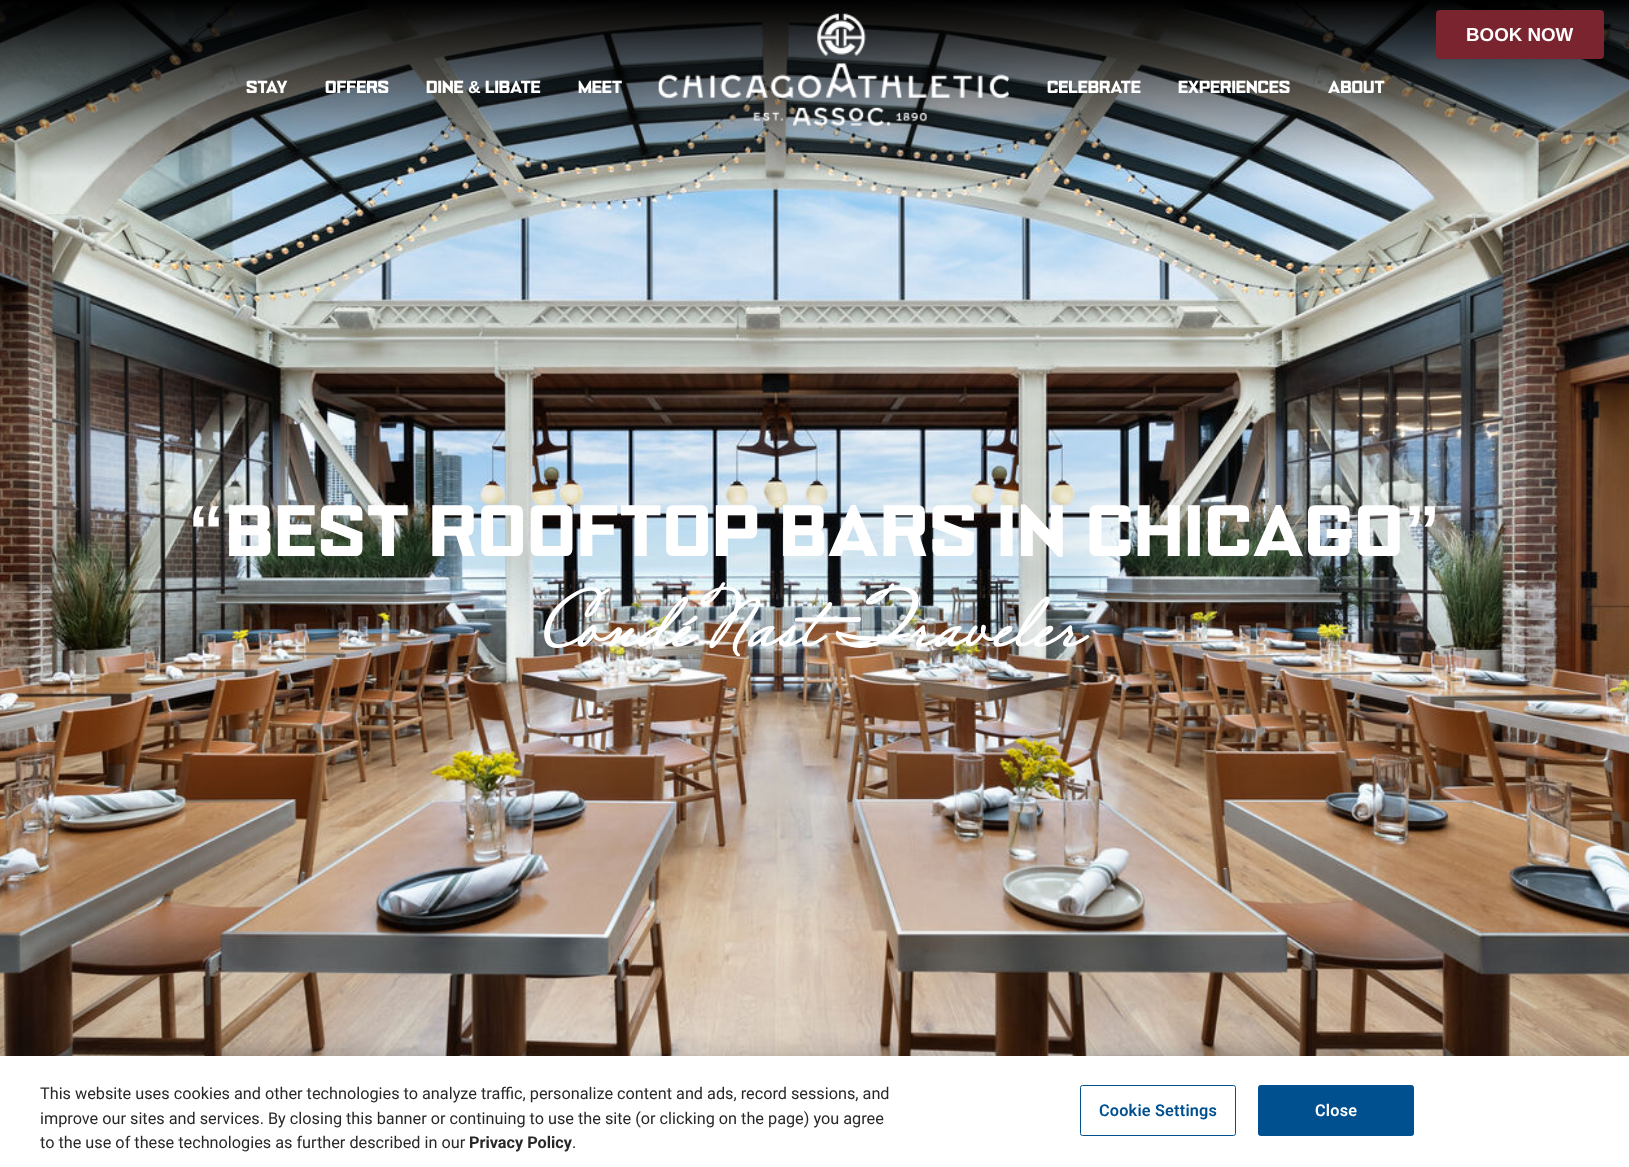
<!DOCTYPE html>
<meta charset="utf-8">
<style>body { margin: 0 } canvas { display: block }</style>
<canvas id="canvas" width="1629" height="1167"></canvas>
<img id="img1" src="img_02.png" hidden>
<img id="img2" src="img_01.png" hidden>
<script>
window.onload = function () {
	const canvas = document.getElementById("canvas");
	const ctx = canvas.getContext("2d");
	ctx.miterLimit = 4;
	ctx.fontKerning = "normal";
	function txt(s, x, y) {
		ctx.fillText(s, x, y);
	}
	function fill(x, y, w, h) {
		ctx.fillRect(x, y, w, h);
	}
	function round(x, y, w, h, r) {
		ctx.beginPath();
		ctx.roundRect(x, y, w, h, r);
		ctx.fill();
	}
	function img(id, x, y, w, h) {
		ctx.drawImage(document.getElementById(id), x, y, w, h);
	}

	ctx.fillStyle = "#FFFFFF";
	fill(0, 0, 1629, 1167);
	img("img1", 0, 0, 1629, 1056);
	ctx.fillStyle = "#79242F";
	round(1436, 10, 168, 49, 4);
	img("img2", 658, 13, 351, 113);
	ctx.fillStyle = "rgba(0, 0, 0, 0.2)";
	ctx.filter = "blur(11px)";
	ctx.beginPath();
	ctx.rect(0, 1056, 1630, 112);
	ctx.fill();
	ctx.filter = "none";
	ctx.fillStyle = "#FFFFFF";
	fill(0, 1056, 1629, 111);
	ctx.beginPath();
	ctx.roundRect(1080.5, 1085.5, 155, 50, 2);
	ctx.strokeStyle = "#005090";
	ctx.stroke();
	ctx.fillStyle = "#005090";
	ctx.beginPath();
	ctx.roundRect(1258.5, 1085.5, 155, 50, 2);
	ctx.fill();
	ctx.stroke();
	ctx.font = "bold 18.75px Liberation Sans";
	ctx.fillStyle = "#FFFFFF";
	txt("BOOK NOW", 1466, 41);
	ctx.font = "bold 17.5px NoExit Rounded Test";
	txt("STAY", 246, 93);
	txt("OFFERS", 325, 93);
	txt("DINE", 426, 93);
	ctx.font = "bold 17.5px Liberation Sans";
	txt("&", 468, 93);
	ctx.font = "bold 17.5px NoExit Rounded Test";
	txt("LIBATE", 485, 93);
	txt("MEET", 578, 93);
	txt("CELEBRATE", 1047, 93);
	txt("EXPERIENCES", 1178, 93);
	txt("ABOUT", 1328, 93);
	ctx.letterSpacing = "1.9px";
	ctx.font = "bold 72.5px Liberation Sans";
	txt("“", 188, 556);
	ctx.font = "bold 72.5px NoExit Rounded Test";
	txt("BEST ROOFTOP BARS IN CHICAGO", 226, 556);
	ctx.font = "bold 72.5px Liberation Sans";
	txt("”", 1404, 556);
	ctx.letterSpacing = "0px";
	ctx.font = "bold 72.5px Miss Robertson";
	txt("Condé Nast Traveler", 545, 644);
	ctx.font = "16.25px Roboto";
	ctx.fillStyle = "#282828";
	txt("This website uses cookies and other technologies to analyze traffic, personalize content and ads, record sessions, and", 40, 1099);
	txt("improve our sites and services. By closing this banner or continuing to use the site (or clicking on the page) you agree", 40, 1124);
	txt("to the use of these technologies as further described in our", 40, 1148);
	ctx.font = "bold 16.25px Roboto";
	txt("Privacy Policy", 469, 1148);
	ctx.font = "16.25px Roboto";
	txt(".", 572, 1148);
	ctx.letterSpacing = "0.2px";
	ctx.font = "600 16.25px Roboto";
	ctx.fillStyle = "#005090";
	txt("Cookie Settings", 1099, 1116);
	ctx.fillStyle = "#FFFFFF";
	txt("Close", 1315, 1116);
};
</script>
